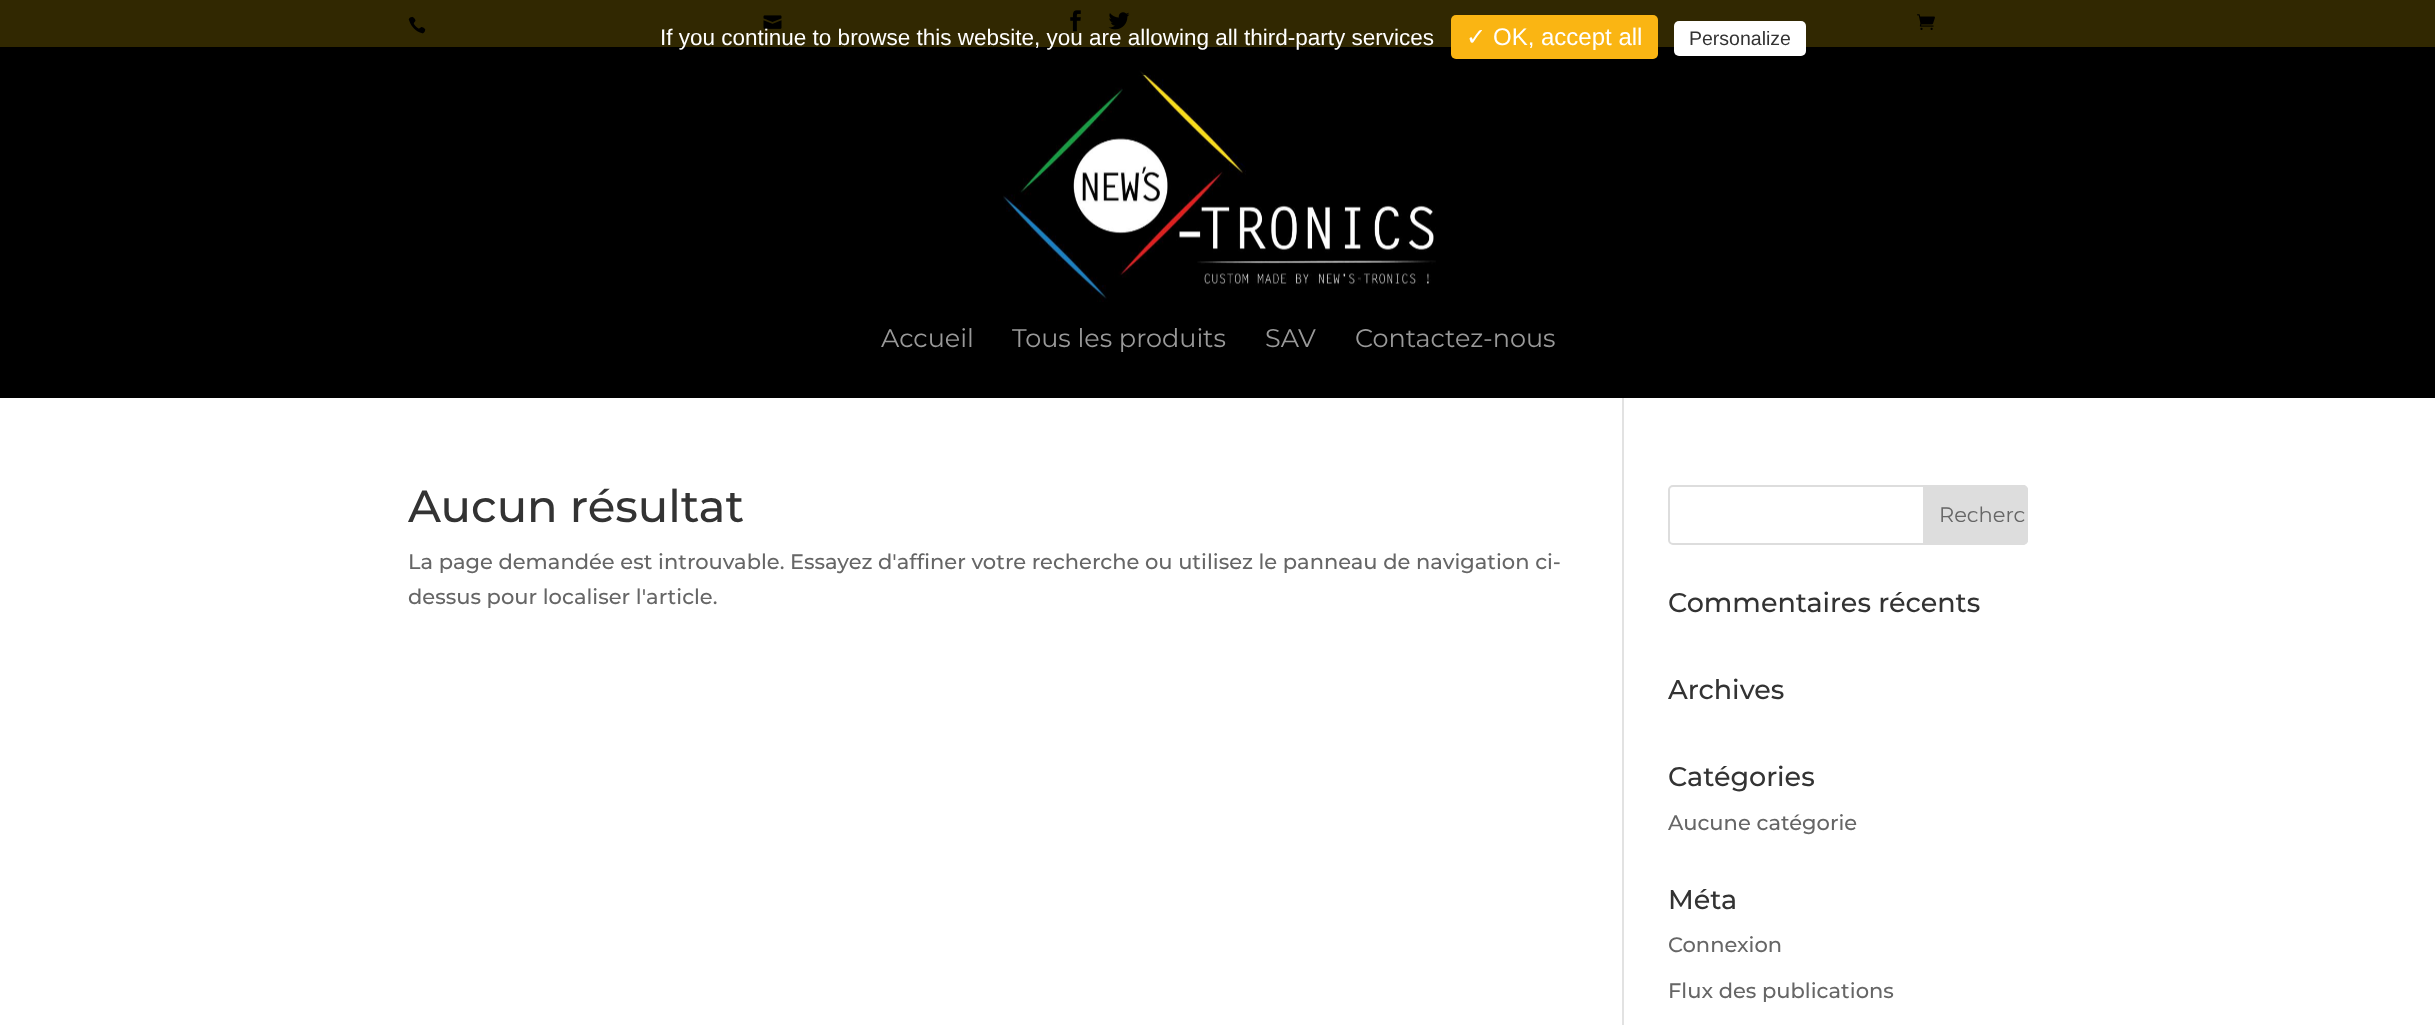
<!DOCTYPE html>
<meta charset="utf-8">
<style>body { margin: 0 } canvas { display: block }</style>
<canvas id="canvas" width="2435" height="1025"></canvas>
<img id="img1" src="img_01.png" hidden>
<img id="img2" src="img_02.png" hidden>
<img id="img3" src="img_03.png" hidden>
<img id="img4" src="img_04.png" hidden>
<img id="img5" src="img_05.png" hidden>
<img id="img6" src="img_06.png" hidden>
<script>
window.onload = function () {
	const canvas = document.getElementById("canvas");
	const ctx = canvas.getContext("2d");
	ctx.miterLimit = 4;
	ctx.fontKerning = "normal";
	function txt(s, x, y) {
		ctx.fillText(s, x, y);
	}
	function fill(x, y, w, h) {
		ctx.fillRect(x, y, w, h);
	}
	function round(x, y, w, h, r) {
		ctx.beginPath();
		ctx.roundRect(x, y, w, h, r);
		ctx.fill();
	}
	function img(id, x, y, w, h) {
		ctx.drawImage(document.getElementById(id), x, y, w, h);
	}

	ctx.fillStyle = "#FFFFFF";
	fill(0, 0, 2435, 1025);
	ctx.fillStyle = "#F4C907";
	fill(0, 0, 2435, 47);
	img("img1", 408, 16, 18, 18);
	img("img2", 763, 15, 19, 14);
	img("img3", 1070, 10, 11, 22);
	img("img4", 1108, 12, 22, 18);
	img("img5", 1917, 14, 18, 16);
	ctx.fillStyle = "#000000";
	fill(0, 47, 2435, 351);
	img("img6", 1003, 70, 433, 232);
	ctx.fillStyle = "rgba(0, 0, 0, 0.8)";
	fill(0, 0, 2435, 75);
	ctx.fillStyle = "#FAB513";
	round(1451, 15, 207, 44, 5);
	ctx.fillStyle = "#FFFFFF";
	round(1674, 21, 132, 35, 5);
	ctx.fillStyle = "#E2E2E2";
	fill(1622, 398, 2, 627);
	ctx.beginPath();
	ctx.roundRect(1669, 486, 358, 58, 4);
	ctx.strokeStyle = "#DDDDDD";
	ctx.lineWidth = 2;
	ctx.stroke();
	ctx.fillStyle = "#DDDDDD";
	ctx.beginPath();
	ctx.roundRect(1924, 486, 103, 58, [0, 4, 4, 0]);
	ctx.fill();
	ctx.stroke();
	ctx.font = "22.5px Liberation Sans";
	ctx.fillStyle = "#FFFFFF";
	txt("If you continue to browse this website, you are allowing all third-party services", 660, 45);
	ctx.font = "24px DejaVu Sans";
	txt("✓", 1466, 45);
	ctx.font = "24px Liberation Sans";
	txt("OK, accept all", 1493, 45);
	ctx.font = "19.5px Liberation Sans";
	ctx.fillStyle = "#333333";
	txt("Personalize", 1689, 45);
	ctx.font = "25.5px Montserrat";
	ctx.fillStyle = "#999999";
	txt("Accueil", 881, 347);
	txt("Tous les produits", 1012, 347);
	txt("SAV", 1265, 347);
	txt("Contactez-nous", 1355, 347);
	ctx.font = "500 45px Montserrat";
	ctx.fillStyle = "#333333";
	txt("Aucun résultat", 408, 522);
	ctx.font = "500 21px Montserrat";
	ctx.fillStyle = "#666666";
	txt("La page demandée est introuvable. Essayez d'affiner votre recherche ou utilisez le panneau de navigation ci-", 408, 569);
	txt("dessus pour localiser l'article.", 408, 604);
	ctx.font = "21px Montserrat";
	txt("Recherc", 1939, 522);
	ctx.font = "500 27px Montserrat";
	ctx.fillStyle = "#333333";
	txt("Commentaires récents", 1668, 612);
	txt("Archives", 1668, 699);
	txt("Catégories", 1668, 786);
	ctx.font = "500 21px Montserrat";
	ctx.fillStyle = "#666666";
	txt("Aucune catégorie", 1668, 830);
	ctx.font = "500 27px Montserrat";
	ctx.fillStyle = "#333333";
	txt("Méta", 1668, 909);
	ctx.font = "500 21px Montserrat";
	ctx.fillStyle = "#666666";
	txt("Connexion", 1668, 952);
	txt("Flux des publications", 1668, 998);
};
</script>
